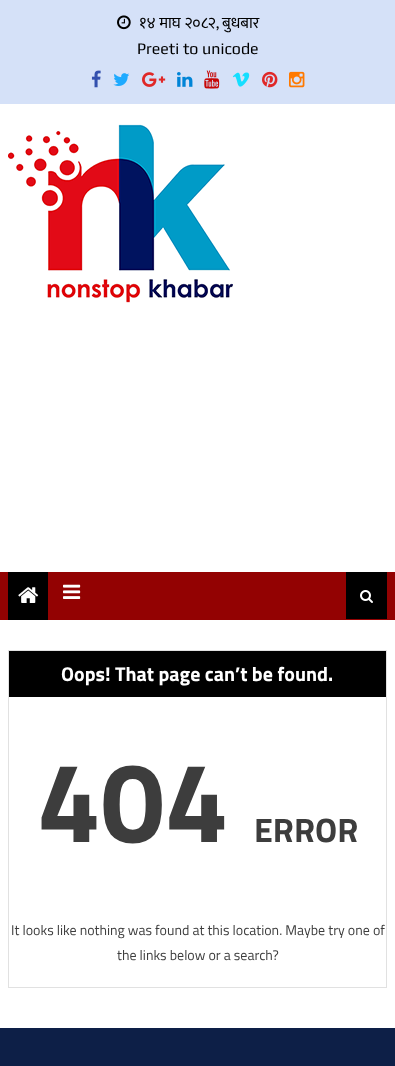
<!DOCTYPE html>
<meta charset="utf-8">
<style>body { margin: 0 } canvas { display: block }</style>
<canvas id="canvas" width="395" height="1066"></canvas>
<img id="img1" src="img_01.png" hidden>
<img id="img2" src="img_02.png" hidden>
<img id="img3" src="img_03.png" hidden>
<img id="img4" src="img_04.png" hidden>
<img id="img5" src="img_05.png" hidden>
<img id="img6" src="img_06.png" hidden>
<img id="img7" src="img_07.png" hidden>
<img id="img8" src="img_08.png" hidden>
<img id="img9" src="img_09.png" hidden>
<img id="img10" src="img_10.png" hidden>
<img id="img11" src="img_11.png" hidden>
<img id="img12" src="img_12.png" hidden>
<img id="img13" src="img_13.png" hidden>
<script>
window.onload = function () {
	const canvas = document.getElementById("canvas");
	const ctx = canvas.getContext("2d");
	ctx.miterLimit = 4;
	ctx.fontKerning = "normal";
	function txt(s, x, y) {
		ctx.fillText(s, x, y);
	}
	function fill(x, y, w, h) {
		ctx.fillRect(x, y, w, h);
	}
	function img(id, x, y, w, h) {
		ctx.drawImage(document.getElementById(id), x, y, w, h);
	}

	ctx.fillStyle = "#FFFFFF";
	fill(0, 0, 395, 1066);
	ctx.fillStyle = "#D5E1F8";
	fill(0, 0, 395, 104);
	img("img1", 117, 15, 14, 15);
	img("img2", 91, 70, 10, 18);
	img("img3", 113, 73, 17, 13);
	img("img4", 142, 72, 24, 15);
	img("img5", 177, 72, 16, 15);
	img("img6", 204, 70, 16, 19);
	img("img7", 232, 72, 18, 15);
	img("img8", 262, 71, 16, 17);
	img("img9", 289, 71, 16, 17);
	img("img10", 8, 124, 225, 179);
	ctx.fillStyle = "#930202";
	fill(0, 572, 395, 48);
	ctx.fillStyle = "#000000";
	fill(8, 572, 40, 48);
	img("img11", 18, 587, 21, 16);
	img("img12", 63, 584, 18, 15);
	fill(346, 572, 41, 47);
	img("img13", 360, 590, 13, 13);
	ctx.strokeStyle = "#E1E1E1";
	ctx.strokeRect(8.5, 650.5, 378, 337);
	fill(9, 651, 377, 46);
	ctx.fillStyle = "#0D1F47";
	fill(0, 1028, 395, 38);
	ctx.font = "16px Ek Mukta";
	ctx.fillStyle = "#000000";
	txt("१४ माघ २०८२, बुधबार", 139, 28);
	ctx.font = "16px Play";
	txt("Preeti to unicode", 137, 54);
	ctx.font = "bold 20px Titillium Web";
	ctx.fillStyle = "#FFFFFF";
	txt("Oops! That page can’t be found.", 61, 681);
	ctx.font = "bold 114px Titillium Web";
	ctx.fillStyle = "#3D3D3D";
	txt("404", 37, 842);
	ctx.font = "bold 34px Titillium Web";
	txt("ERROR", 254, 842);
	ctx.font = "14px Titillium Web";
	txt("It looks like nothing was found at this location. Maybe try one of", 11, 935);
	txt("the links below or a search?", 117, 960);
};
</script>
